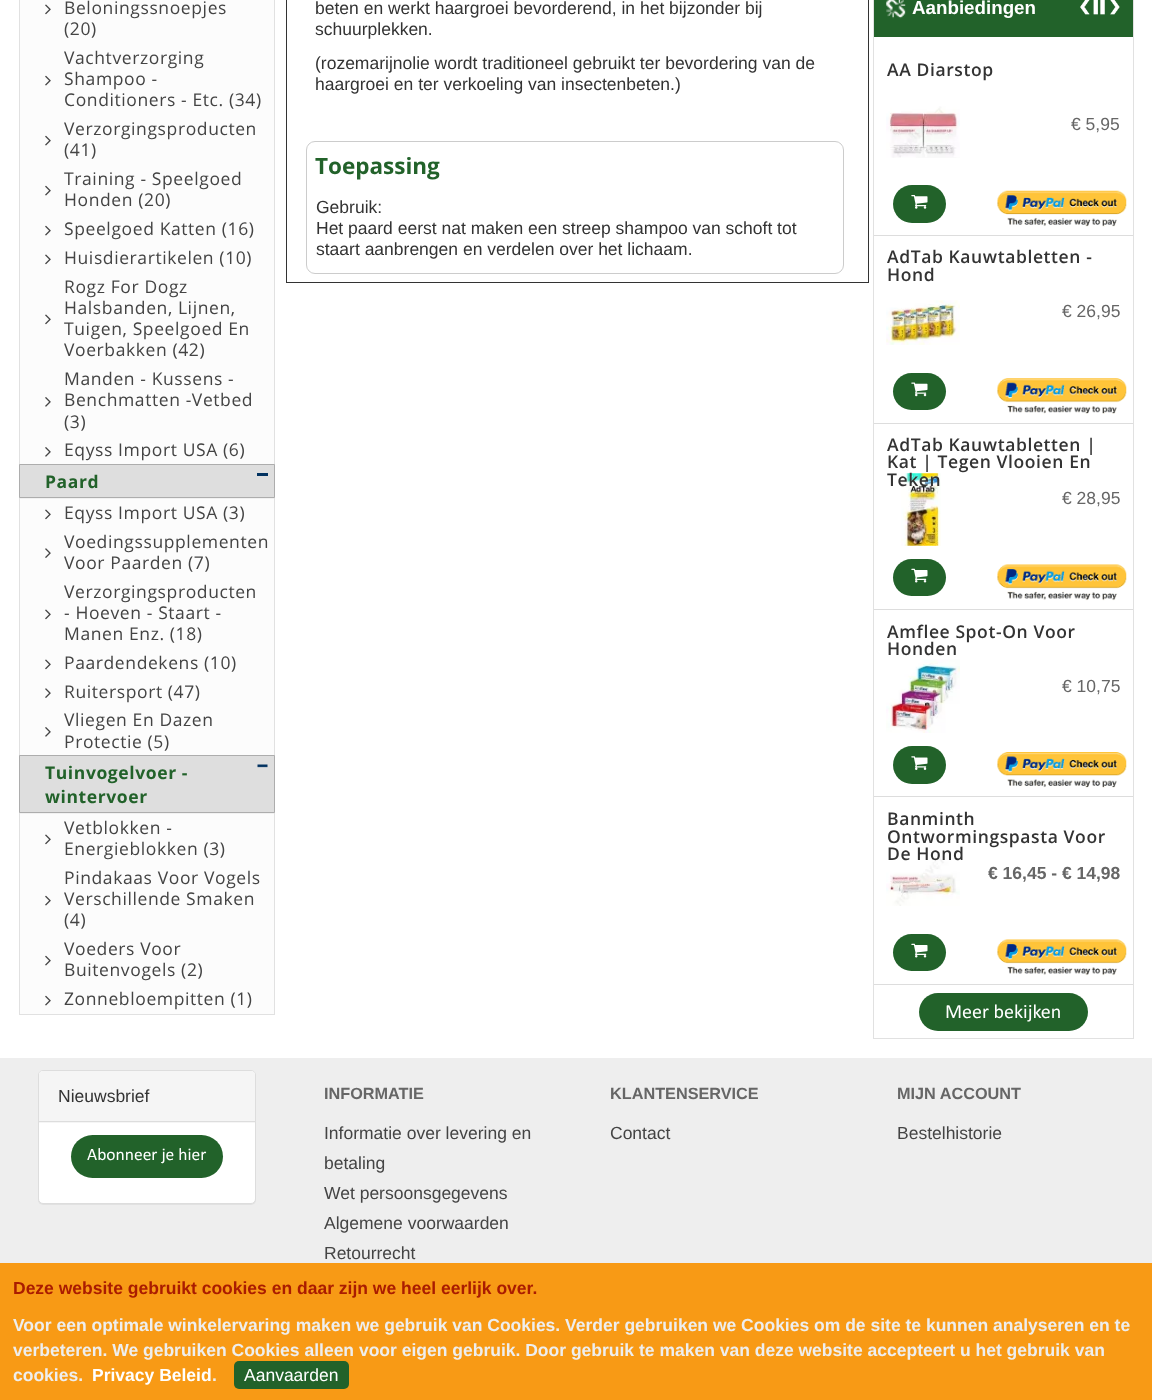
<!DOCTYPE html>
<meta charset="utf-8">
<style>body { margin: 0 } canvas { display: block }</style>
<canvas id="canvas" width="1152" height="1400"></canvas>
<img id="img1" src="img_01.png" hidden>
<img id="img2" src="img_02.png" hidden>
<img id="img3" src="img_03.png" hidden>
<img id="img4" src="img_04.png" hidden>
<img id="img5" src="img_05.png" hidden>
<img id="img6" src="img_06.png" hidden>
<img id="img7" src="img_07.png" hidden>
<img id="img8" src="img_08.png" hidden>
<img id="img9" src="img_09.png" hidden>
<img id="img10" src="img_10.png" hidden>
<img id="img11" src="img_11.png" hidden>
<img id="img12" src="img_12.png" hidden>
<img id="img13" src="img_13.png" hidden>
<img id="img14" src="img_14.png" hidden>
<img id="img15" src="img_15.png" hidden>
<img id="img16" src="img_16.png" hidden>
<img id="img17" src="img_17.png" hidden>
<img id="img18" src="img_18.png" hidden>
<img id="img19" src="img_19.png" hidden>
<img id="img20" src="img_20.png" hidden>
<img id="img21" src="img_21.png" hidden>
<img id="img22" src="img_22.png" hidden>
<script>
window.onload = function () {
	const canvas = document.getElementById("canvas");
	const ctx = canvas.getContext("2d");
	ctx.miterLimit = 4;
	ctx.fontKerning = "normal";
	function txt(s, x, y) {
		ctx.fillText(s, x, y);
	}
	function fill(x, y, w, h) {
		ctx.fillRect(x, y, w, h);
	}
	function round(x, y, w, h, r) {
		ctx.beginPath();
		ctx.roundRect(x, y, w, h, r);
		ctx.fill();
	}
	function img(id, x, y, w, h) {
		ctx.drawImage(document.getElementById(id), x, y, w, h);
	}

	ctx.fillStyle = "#FFFFFF";
	fill(0, 0, 1152, 1400);
	ctx.strokeStyle = "#E1E1E1";
	ctx.strokeRect(19.5, -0.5, 255, 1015);
	ctx.fillStyle = "#FCFCFC";
	fill(20, 0, 254, 464);
	img("img1", 45, 4, 6, 11);
	img("img2", 45, 75, 6, 11);
	img("img2", 45, 135, 6, 11);
	img("img2", 45, 185, 6, 11);
	img("img2", 45, 225, 6, 11);
	img("img1", 45, 254, 6, 11);
	img("img1", 45, 314, 6, 11);
	img("img3", 45, 397, 6, 10);
	img("img3", 45, 447, 6, 10);
	ctx.fillStyle = "#DEDEDE";
	ctx.beginPath();
	ctx.rect(19.5, 464.5, 255, 33);
	ctx.fill();
	ctx.strokeStyle = "#ADADAD";
	ctx.stroke();
	ctx.fillStyle = "#023260";
	fill(257, 473, 11, 3);
	ctx.fillStyle = "#FCFCFC";
	fill(20, 499, 254, 256);
	ctx.fillStyle = "#F1F1F1";
	fill(20, 498, 254, 1);
	img("img1", 45, 509, 6, 11);
	img("img4", 45, 548, 6, 10);
	img("img1", 45, 609, 6, 11);
	img("img1", 45, 659, 6, 11);
	img("img4", 45, 688, 6, 10);
	img("img3", 45, 727, 6, 10);
	ctx.fillStyle = "#DEDEDE";
	ctx.beginPath();
	ctx.rect(19.5, 755.5, 255, 57);
	ctx.fill();
	ctx.stroke();
	img("img5", 257, 764, 11, 4);
	ctx.fillStyle = "#FCFCFC";
	fill(20, 814, 254, 200);
	ctx.fillStyle = "#F1F1F1";
	fill(20, 813, 254, 1);
	img("img1", 45, 834, 6, 11);
	img("img2", 45, 895, 6, 11);
	img("img2", 45, 955, 6, 11);
	img("img2", 45, 995, 6, 11);
	ctx.strokeStyle = "#333333";
	ctx.strokeRect(286.5, -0.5, 582, 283);
	ctx.beginPath();
	ctx.roundRect(306.5, 141.5, 537, 132, 8.5);
	ctx.strokeStyle = "#CCCCCC";
	ctx.stroke();
	ctx.strokeStyle = "#E1E1E1";
	ctx.strokeRect(873.5, -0.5, 260, 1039);
	ctx.fillStyle = "#22622A";
	fill(874, 0, 259, 37);
	img("img6", 886, 0, 20, 19);
	img("img7", 1080, 0, 10, 15);
	img("img8", 1093, 0, 12, 15);
	img("img9", 1110, 0, 10, 15);
	ctx.fillStyle = "#DDDDDD";
	fill(874, 235, 259, 1);
	img("img10", 886, 106, 74, 52);
	ctx.fillStyle = "#22622A";
	round(893, 185, 53, 38, 19);
	img("img11", 911, 195, 17, 14);
	img("img12", 997, 190, 130, 37);
	ctx.fillStyle = "#DDDDDD";
	fill(874, 423, 259, 1);
	img("img13", 886, 300, 74, 45);
	ctx.fillStyle = "#22622A";
	round(893, 373, 53, 37, 18.5);
	img("img14", 911, 382, 17, 15);
	img("img15", 997, 378, 130, 36);
	ctx.fillStyle = "#DDDDDD";
	fill(874, 609, 259, 1);
	img("img16", 901, 473, 40, 73);
	ctx.fillStyle = "#22622A";
	round(893, 559, 53, 37, 18.5);
	img("img17", 911, 568, 17, 15);
	img("img18", 997, 564, 130, 37);
	ctx.fillStyle = "#DDDDDD";
	fill(874, 796, 259, 1);
	img("img19", 886, 659, 74, 74);
	ctx.fillStyle = "#22622A";
	round(893, 746, 53, 38, 19);
	img("img20", 911, 756, 17, 14);
	img("img21", 997, 752, 130, 36);
	ctx.fillStyle = "#DDDDDD";
	fill(874, 984, 259, 1);
	img("img22", 886, 856, 74, 50);
	ctx.fillStyle = "#22622A";
	round(893, 934, 53, 37, 18.5);
	img("img17", 911, 943, 17, 15);
	img("img18", 997, 939, 130, 37);
	round(919, 993, 169, 38, 19);
	ctx.fillStyle = "#EEEEEE";
	fill(0, 1058, 1152, 205);
	ctx.fillStyle = "rgba(0, 0, 0, 0.05)";
	ctx.filter = "blur(0.5px)";
	ctx.beginPath();
	ctx.roundRect(38, 1071, 218, 134, 5);
	ctx.fill();
	ctx.filter = "none";
	ctx.fillStyle = "#FFFFFF";
	ctx.beginPath();
	ctx.roundRect(38.5, 1070.5, 217, 133, 4.5);
	ctx.fill();
	ctx.strokeStyle = "#DDDDDD";
	ctx.stroke();
	ctx.fillStyle = "#F5F5F5";
	ctx.beginPath();
	ctx.roundRect(39, 1071, 216, 52, [4, 4, 0, 0]);
	ctx.fill();
	ctx.fillStyle = "#DDDDDD";
	fill(39, 1121, 216, 1);
	ctx.fillStyle = "#22622A";
	round(71, 1135, 152, 43, 21.5);
	ctx.fillStyle = "#F89A15";
	fill(0, 1263, 1152, 137);
	ctx.fillStyle = "#22622A";
	round(234, 1361, 115, 28, 5);
	ctx.letterSpacing = "0.6px";
	ctx.font = "17.5px Open Sans";
	ctx.fillStyle = "#444444";
	txt("Beloningssnoepjes", 64, 14);
	txt("(20)", 64, 35);
	txt("Vachtverzorging", 64, 64);
	txt("Shampoo -", 64, 85);
	txt("Conditioners - Etc. (34)", 64, 106);
	txt("Verzorgingsproducten", 64, 135);
	txt("(41)", 64, 156);
	txt("Training - Speelgoed", 64, 185);
	txt("Honden (20)", 64, 206);
	txt("Speelgoed Katten (16)", 64, 235);
	txt("Huisdierartikelen (10)", 64, 264);
	txt("Rogz For Dogz", 64, 293);
	txt("Halsbanden, Lijnen,", 64, 314);
	txt("Tuigen, Speelgoed En", 64, 335);
	txt("Voerbakken (42)", 64, 356);
	txt("Manden - Kussens -", 64, 385);
	txt("Benchmatten -Vetbed", 64, 406);
	txt("(3)", 64, 428);
	txt("Eqyss Import USA (6)", 64, 456);
	ctx.font = "bold 17.5px Open Sans";
	ctx.fillStyle = "#22622A";
	txt("Paard", 45, 488);
	ctx.font = "17.5px Open Sans";
	ctx.fillStyle = "#444444";
	txt("Eqyss Import USA (3)", 64, 519);
	txt("Voedingssupplementen", 64, 548);
	txt("Voor Paarden (7)", 64, 569);
	txt("Verzorgingsproducten", 64, 598);
	txt("- Hoeven - Staart -", 64, 619);
	txt("Manen Enz. (18)", 64, 640);
	txt("Paardendekens (10)", 64, 669);
	txt("Ruitersport (47)", 64, 698);
	txt("Vliegen En Dazen", 64, 726);
	txt("Protectie (5)", 64, 748);
	ctx.font = "bold 17.5px Open Sans";
	ctx.fillStyle = "#22622A";
	txt("Tuinvogelvoer -", 45, 779);
	txt("wintervoer", 45, 803);
	ctx.font = "17.5px Open Sans";
	ctx.fillStyle = "#444444";
	txt("Vetblokken -", 64, 834);
	txt("Energieblokken (3)", 64, 855);
	txt("Pindakaas Voor Vogels", 64, 884);
	txt("Verschillende Smaken", 64, 905);
	txt("(4)", 64, 926);
	txt("Voeders Voor", 64, 955);
	txt("Buitenvogels (2)", 64, 976);
	txt("Zonnebloempitten (1)", 64, 1005);
	ctx.letterSpacing = "0px";
	ctx.font = "17.5px Liberation Sans";
	ctx.fillStyle = "#333333";
	txt("beten en werkt haargroei bevorderend, in het bijzonder bij", 315, 14);
	txt("schuurplekken.", 315, 35);
	txt("(rozemarijnolie wordt traditioneel gebruikt ter bevordering van de", 315, 69);
	txt("haargroei en ter verkoeling van insectenbeten.)", 315, 90);
	ctx.font = "bold 22.5px Open Sans";
	ctx.fillStyle = "#22622A";
	txt("Toepassing", 315, 174);
	ctx.font = "17.5px Liberation Sans";
	ctx.fillStyle = "#333333";
	txt("Gebruik:", 316, 213);
	txt("Het paard eerst nat maken een streep shampoo van schoft tot", 316, 234);
	txt("staart aanbrengen en verdelen over het lichaam.", 316, 255);
	ctx.font = "bold 18.75px Liberation Sans";
	ctx.fillStyle = "#FFFFFF";
	txt("Aanbiedingen", 912, 14);
	ctx.letterSpacing = "0.6px";
	ctx.font = "600 17.5px Open Sans";
	ctx.fillStyle = "#333333";
	txt("AA Diarstop", 887, 76);
	ctx.letterSpacing = "0px";
	ctx.font = "17.5px Liberation Sans";
	ctx.fillStyle = "#666666";
	txt("€ 5,95", 1071, 130);
	ctx.letterSpacing = "0.6px";
	ctx.font = "600 17.5px Open Sans";
	ctx.fillStyle = "#333333";
	txt("AdTab Kauwtabletten -", 887, 263);
	txt("Hond", 887, 281);
	ctx.letterSpacing = "0px";
	ctx.font = "17.5px Liberation Sans";
	ctx.fillStyle = "#666666";
	txt("€ 26,95", 1062, 317);
	ctx.letterSpacing = "0.6px";
	ctx.font = "600 17.5px Open Sans";
	ctx.fillStyle = "#333333";
	txt("AdTab Kauwtabletten |", 887, 451);
	txt("Kat | Tegen Vlooien En", 887, 468);
	txt("Teken", 887, 486);
	ctx.letterSpacing = "0px";
	ctx.font = "17.5px Liberation Sans";
	ctx.fillStyle = "#666666";
	txt("€ 28,95", 1062, 504);
	ctx.letterSpacing = "0.6px";
	ctx.font = "600 17.5px Open Sans";
	ctx.fillStyle = "#333333";
	txt("Amflee Spot-On Voor", 887, 638);
	txt("Honden", 887, 655);
	ctx.letterSpacing = "0px";
	ctx.font = "17.5px Liberation Sans";
	ctx.fillStyle = "#666666";
	txt("€ 10,75", 1062, 692);
	ctx.letterSpacing = "0.6px";
	ctx.font = "600 17.5px Open Sans";
	ctx.fillStyle = "#333333";
	txt("Banminth", 887, 825);
	txt("Ontwormingspasta Voor", 887, 843);
	txt("De Hond", 887, 860);
	ctx.letterSpacing = "0px";
	ctx.font = "bold 17.5px Liberation Sans";
	ctx.fillStyle = "#666666";
	txt("€ 16,45 - € 14,98", 988, 879);
	ctx.font = "20px Calibri";
	ctx.fillStyle = "#FFFFFF";
	txt("Meer bekijken", 945, 1018);
	ctx.font = "17.5px Liberation Sans";
	ctx.fillStyle = "#333333";
	txt("Nieuwsbrief", 58, 1102);
	ctx.font = "17.5px Calibri";
	ctx.fillStyle = "#FFFFFF";
	txt("Abonneer je hier", 87, 1160);
	ctx.font = "bold 16.25px Liberation Sans";
	ctx.fillStyle = "#666666";
	txt("INFORMATIE", 324, 1099);
	ctx.font = "17.5px Liberation Sans";
	ctx.fillStyle = "#444444";
	txt("Informatie over levering en", 324, 1139);
	txt("betaling", 324, 1169);
	txt("Wet persoonsgegevens", 324, 1199);
	txt("Algemene voorwaarden", 324, 1229);
	txt("Retourrecht", 324, 1259);
	ctx.font = "bold 16.25px Liberation Sans";
	ctx.fillStyle = "#666666";
	txt("KLANTENSERVICE", 610, 1099);
	ctx.font = "17.5px Liberation Sans";
	ctx.fillStyle = "#444444";
	txt("Contact", 610, 1139);
	ctx.font = "bold 16.25px Liberation Sans";
	ctx.fillStyle = "#666666";
	txt("MIJN ACCOUNT", 897, 1099);
	ctx.font = "17.5px Liberation Sans";
	ctx.fillStyle = "#444444";
	txt("Bestelhistorie", 897, 1139);
	ctx.font = "bold 17.5px Liberation Sans";
	ctx.fillStyle = "#AA1C01";
	txt("Deze website gebruikt cookies en daar zijn we heel eerlijk over.", 13, 1294);
	ctx.fillStyle = "#EEEEEE";
	txt("Voor een optimale winkelervaring maken we gebruik van Cookies. Verder gebruiken we Cookies om de site te kunnen analyseren en te", 13, 1331);
	txt("verbeteren. We gebruiken Cookies alleen voor eigen gebruik. Door gebruik te maken van deze website accepteert u het gebruik van", 13, 1356);
	txt("cookies.", 13, 1381);
	ctx.fillStyle = "#FFFFFF";
	txt("Privacy Beleid", 92, 1381);
	ctx.fillStyle = "#EEEEEE";
	txt(".", 212, 1381);
	ctx.font = "17.5px Liberation Sans";
	ctx.fillStyle = "#FFFFFF";
	txt("Aanvaarden", 244, 1381);
};
</script>
